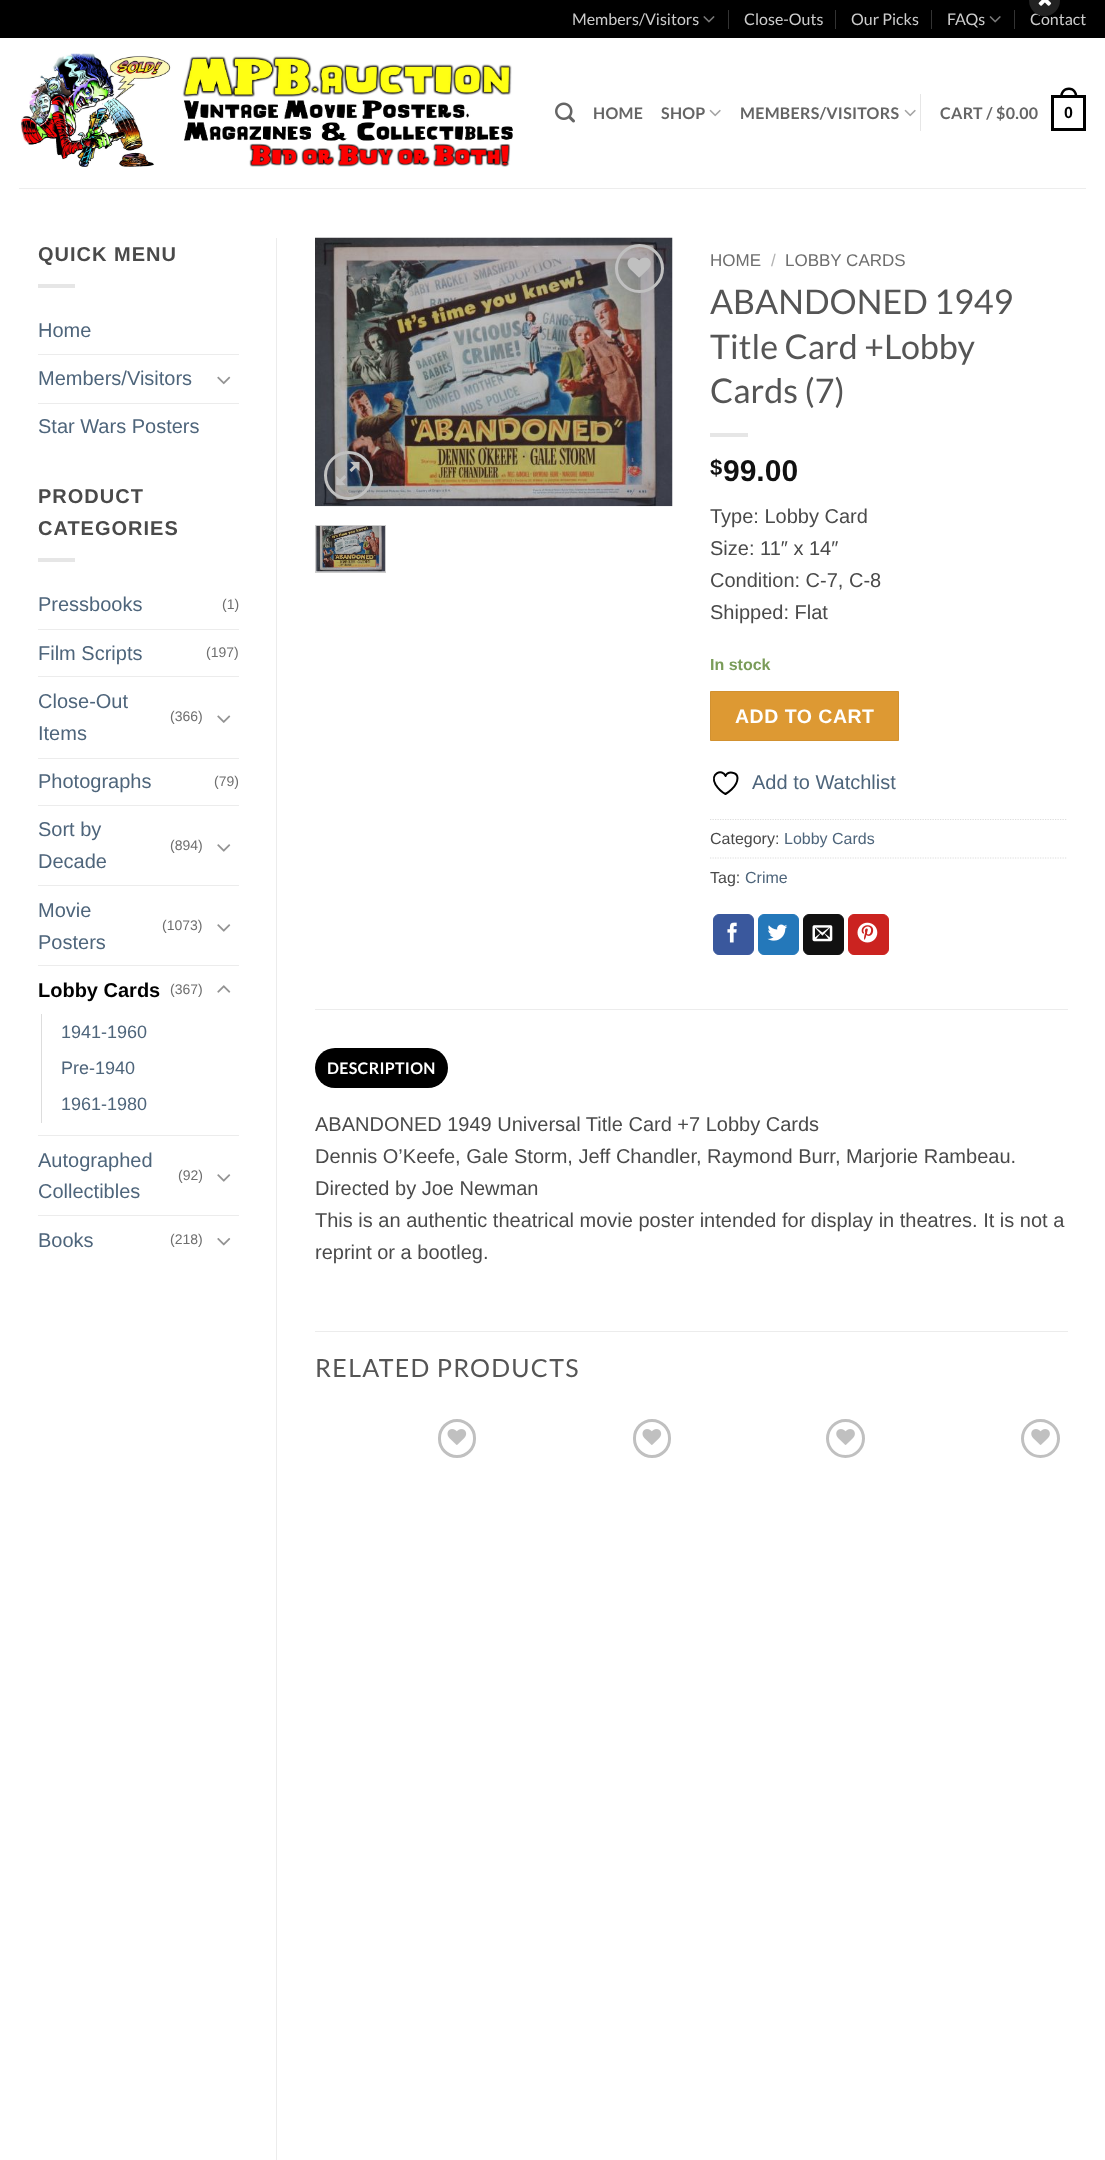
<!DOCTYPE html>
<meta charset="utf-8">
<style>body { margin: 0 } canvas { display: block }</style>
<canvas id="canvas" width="1105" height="2160"></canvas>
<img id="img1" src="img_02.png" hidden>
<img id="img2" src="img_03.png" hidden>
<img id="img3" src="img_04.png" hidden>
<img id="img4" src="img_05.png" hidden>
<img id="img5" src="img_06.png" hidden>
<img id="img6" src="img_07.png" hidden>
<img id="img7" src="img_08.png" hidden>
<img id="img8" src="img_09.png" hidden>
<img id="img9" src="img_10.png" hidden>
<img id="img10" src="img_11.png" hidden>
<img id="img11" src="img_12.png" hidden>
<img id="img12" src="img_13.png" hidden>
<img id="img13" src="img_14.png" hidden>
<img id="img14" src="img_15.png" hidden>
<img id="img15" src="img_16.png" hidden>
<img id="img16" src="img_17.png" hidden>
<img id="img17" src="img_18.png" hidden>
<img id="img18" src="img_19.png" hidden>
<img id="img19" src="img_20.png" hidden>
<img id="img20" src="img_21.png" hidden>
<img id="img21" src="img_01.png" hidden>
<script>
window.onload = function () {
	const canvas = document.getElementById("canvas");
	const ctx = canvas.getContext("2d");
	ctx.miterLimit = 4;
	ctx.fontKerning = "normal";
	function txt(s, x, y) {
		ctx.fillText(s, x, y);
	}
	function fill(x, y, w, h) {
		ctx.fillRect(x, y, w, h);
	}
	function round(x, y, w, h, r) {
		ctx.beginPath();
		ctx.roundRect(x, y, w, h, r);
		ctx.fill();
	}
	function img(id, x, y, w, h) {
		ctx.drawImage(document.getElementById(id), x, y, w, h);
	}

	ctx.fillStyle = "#FFFFFF";
	fill(0, 0, 1105, 2160);
	ctx.fillStyle = "#000000";
	fill(0, 0, 1105, 38);
	img("img1", 703, 16, 12, 7);
	ctx.fillStyle = "#333333";
	fill(728, 10, 1, 19);
	fill(835, 10, 1, 19);
	fill(931, 10, 1, 19);
	img("img2", 989, 16, 12, 7);
	fill(1014, 10, 1, 19);
	img("img3", 20, 53, 493, 114);
	img("img4", 555, 102, 20, 21);
	img("img5", 709, 109, 12, 8);
	img("img5", 904, 109, 12, 8);
	ctx.fillStyle = "#E6E6E6";
	fill(920, 94, 1, 37);
	ctx.strokeStyle = "#000000";
	ctx.lineWidth = 3;
	ctx.strokeRect(1052.5, 96.5, 32, 33);
	ctx.fillStyle = "#000000";
	ctx.beginPath();
	ctx.moveTo(1069, 87.5);
	ctx.bezierCurveTo(1074.5, 87.5, 1077.5, 92, 1077.5, 97.5);
	ctx.lineTo(1060, 97.5);
	ctx.bezierCurveTo(1060, 92, 1063, 87.5, 1069, 87.5);
	ctx.closePath();
	ctx.moveTo(1069, 90);
	ctx.bezierCurveTo(1073, 90, 1075, 93.5, 1075, 97.5);
	ctx.lineTo(1062.5, 97.5);
	ctx.bezierCurveTo(1062.5, 93.5, 1064.5, 90, 1069, 90);
	ctx.closePath();
	ctx.fill("evenodd");
	ctx.fillStyle = "#EDEDED";
	fill(19, 188, 1067, 1);
	ctx.fillStyle = "#E6E6E6";
	fill(38, 284, 37, 4);
	ctx.fillStyle = "#ECECEC";
	fill(38, 354, 201, 1);
	img("img6", 217, 376, 14, 9);
	fill(38, 403, 201, 1);
	ctx.fillStyle = "#E6E6E6";
	fill(38, 558, 37, 4);
	ctx.fillStyle = "#ECECEC";
	fill(38, 629, 201, 1);
	fill(38, 676, 201, 1);
	img("img7", 217, 715, 14, 8);
	fill(38, 758, 201, 1);
	fill(38, 805, 201, 1);
	img("img8", 217, 844, 14, 8);
	fill(38, 885, 201, 1);
	img("img8", 217, 924, 14, 8);
	fill(38, 965, 201, 1);
	img("img9", 217, 985, 14, 8);
	ctx.fillStyle = "#DDDDDD";
	fill(41, 1014, 1, 109);
	ctx.fillStyle = "#ECECEC";
	fill(38, 1135, 201, 1);
	img("img8", 217, 1174, 14, 8);
	fill(38, 1215, 201, 1);
	img("img10", 217, 1238, 14, 8);
	fill(276, 238, 1, 1922);
	img("img11", 315, 237, 358, 270);
	ctx.beginPath();
	ctx.arc(639.5, 268.5, 23, 0, Math.PI * 2);
	ctx.strokeStyle = "#C0C0C0";
	ctx.stroke();
	img("img12", 627, 257, 24, 21);
	ctx.beginPath();
	ctx.arc(348.5, 475.5, 23, 0, Math.PI * 2);
	ctx.stroke();
	img("img13", 336, 461, 24, 25);
	ctx.strokeStyle = "#CCCCCC";
	ctx.lineWidth = 1;
	ctx.strokeRect(315.5, 525.5, 70, 47);
	img("img14", 316, 526, 69, 46);
	ctx.fillStyle = "#E6E6E6";
	fill(710, 433, 38, 4);
	ctx.fillStyle = "#DD9933";
	ctx.beginPath();
	ctx.rect(710.5, 691.5, 188, 49);
	ctx.fill();
	ctx.strokeStyle = "#D29130";
	ctx.stroke();
	ctx.beginPath();
	ctx.moveTo(737.5, 778);
	ctx.bezierCurveTo(737.5, 772, 728, 770.5, 725.5, 776);
	ctx.bezierCurveTo(722.5, 768.5, 709.5, 773, 715.5, 784.5);
	ctx.bezierCurveTo(718, 788.5, 721.5, 792, 725.5, 794);
	ctx.bezierCurveTo(725.5, 794, 737.5, 787.5, 737.5, 778);
	ctx.closePath();
	ctx.strokeStyle = "#000000";
	ctx.lineWidth = 2;
	ctx.lineCap = "round";
	ctx.lineJoin = "round";
	ctx.stroke();
	ctx.beginPath();
	ctx.moveTo(710, 819.5);
	ctx.lineTo(1067.5, 819.5);
	ctx.strokeStyle = "#DDDDDD";
	ctx.lineWidth = 1.2;
	ctx.lineCap = "butt";
	ctx.lineJoin = "miter";
	ctx.setLineDash([1.25, 1.25]);
	ctx.stroke();
	ctx.beginPath();
	ctx.moveTo(710, 858);
	ctx.lineTo(1067.5, 858);
	ctx.stroke();
	ctx.fillStyle = "#3A589D";
	ctx.beginPath();
	ctx.roundRect(713.5, 914.5, 40, 40, 5.5);
	ctx.fill();
	ctx.strokeStyle = "#3A589D";
	ctx.lineWidth = 1;
	ctx.setLineDash([]);
	ctx.stroke();
	img("img15", 727, 922, 10, 21);
	ctx.fillStyle = "#2478BA";
	ctx.beginPath();
	ctx.roundRect(758.5, 914.5, 40, 40, 5.5);
	ctx.fill();
	ctx.strokeStyle = "#2478BA";
	ctx.stroke();
	img("img16", 767, 924, 21, 17);
	ctx.fillStyle = "#111111";
	ctx.beginPath();
	ctx.roundRect(803.5, 914.5, 40, 40, 5.5);
	ctx.fill();
	ctx.strokeStyle = "#111111";
	ctx.stroke();
	img("img17", 812, 925, 21, 17);
	ctx.fillStyle = "#CB2320";
	ctx.beginPath();
	ctx.roundRect(848.5, 914.5, 40, 40, 5.5);
	ctx.fill();
	ctx.strokeStyle = "#CB2320";
	ctx.stroke();
	img("img18", 857, 922, 21, 21);
	ctx.fillStyle = "#ECECEC";
	fill(315, 1009, 753, 1);
	ctx.fillStyle = "#000000";
	round(315, 1048, 133, 40, 20);
	ctx.fillStyle = "#ECECEC";
	fill(315, 1331, 753, 1);
	ctx.beginPath();
	ctx.roundRect(439.5, 1420.5, 35, 36, 17.5);
	ctx.strokeStyle = "#C0C0C0";
	ctx.lineWidth = 3;
	ctx.stroke();
	img("img19", 447, 1429, 20, 16);
	ctx.beginPath();
	ctx.roundRect(634.5, 1420.5, 35, 36, 17.5);
	ctx.stroke();
	img("img19", 642, 1429, 20, 16);
	ctx.beginPath();
	ctx.arc(845.5, 1438.5, 18, 0, Math.PI * 2);
	ctx.stroke();
	img("img20", 836, 1429, 19, 16);
	ctx.beginPath();
	ctx.arc(1040.5, 1438.5, 18, 0, Math.PI * 2);
	ctx.stroke();
	img("img20", 1031, 1429, 19, 16);
	ctx.font = "16px Lato";
	ctx.fillStyle = "#CCCCCC";
	txt("Members/Visitors", 572, 25);
	txt("Close-Outs", 744, 25);
	txt("Our Picks", 851, 25);
	txt("FAQs", 947, 25);
	txt("Contact", 1030, 25);
	ctx.fillStyle = "#222222";
	ctx.beginPath();
	ctx.arc(1044.5, 0.5, 15.5, 0, Math.PI * 2);
	ctx.fill();
	img("img21", 1038, 0, 14, 6);
	ctx.letterSpacing = "0.3px";
	ctx.font = "bold 16px Lato";
	ctx.fillStyle = "#656565";
	txt("HOME", 593, 119);
	txt("SHOP", 661, 119);
	txt("MEMBERS/VISITORS", 740, 119);
	txt("CART / $0.00", 940, 119);
	ctx.font = "bold 16px Liberation Sans";
	ctx.fillStyle = "#000000";
	txt("0", 1064, 118);
	ctx.letterSpacing = "1px";
	ctx.font = "bold 20px Liberation Sans";
	ctx.fillStyle = "#4A4A4A";
	txt("QUICK MENU", 38, 261);
	ctx.letterSpacing = "0px";
	ctx.font = "20px Liberation Sans";
	ctx.fillStyle = "#4E657B";
	txt("Home", 38, 337);
	txt("Members/Visitors", 38, 385);
	txt("Star Wars Posters", 38, 433);
	ctx.letterSpacing = "1px";
	ctx.font = "bold 20px Liberation Sans";
	ctx.fillStyle = "#4A4A4A";
	txt("PRODUCT", 38, 503);
	txt("CATEGORIES", 38, 535);
	ctx.letterSpacing = "0px";
	ctx.font = "20px Liberation Sans";
	ctx.fillStyle = "#4E657B";
	txt("Pressbooks", 38, 611);
	ctx.font = "14px Liberation Sans";
	ctx.fillStyle = "#6E6E6E";
	txt("(1)", 222, 609);
	ctx.font = "20px Liberation Sans";
	ctx.fillStyle = "#4E657B";
	txt("Film Scripts", 38, 660);
	ctx.font = "14px Liberation Sans";
	ctx.fillStyle = "#6E6E6E";
	txt("(197)", 206, 657);
	ctx.font = "20px Liberation Sans";
	ctx.fillStyle = "#4E657B";
	txt("Close-Out", 38, 708);
	txt("Items", 38, 740);
	ctx.font = "14px Liberation Sans";
	ctx.fillStyle = "#6E6E6E";
	txt("(366)", 170, 721);
	ctx.font = "20px Liberation Sans";
	ctx.fillStyle = "#4E657B";
	txt("Photographs", 38, 788);
	ctx.font = "14px Liberation Sans";
	ctx.fillStyle = "#6E6E6E";
	txt("(79)", 214, 786);
	ctx.font = "20px Liberation Sans";
	ctx.fillStyle = "#4E657B";
	txt("Sort by", 38, 836);
	txt("Decade", 38, 868);
	ctx.font = "14px Liberation Sans";
	ctx.fillStyle = "#6E6E6E";
	txt("(894)", 170, 850);
	ctx.font = "20px Liberation Sans";
	ctx.fillStyle = "#4E657B";
	txt("Movie", 38, 917);
	txt("Posters", 38, 949);
	ctx.font = "14px Liberation Sans";
	ctx.fillStyle = "#6E6E6E";
	txt("(1073)", 162, 930);
	ctx.font = "bold 20px Liberation Sans";
	ctx.fillStyle = "#000000";
	txt("Lobby Cards", 38, 997);
	ctx.font = "14px Liberation Sans";
	ctx.fillStyle = "#6E6E6E";
	txt("(367)", 170, 994);
	ctx.font = "18px Liberation Sans";
	ctx.fillStyle = "#4E657B";
	txt("1941-1960", 61, 1038);
	txt("Pre-1940", 61, 1074);
	txt("1961-1980", 61, 1110);
	ctx.font = "20px Liberation Sans";
	txt("Autographed", 38, 1167);
	txt("Collectibles", 38, 1198);
	ctx.font = "14px Liberation Sans";
	ctx.fillStyle = "#6E6E6E";
	txt("(92)", 178, 1180);
	ctx.font = "20px Liberation Sans";
	ctx.fillStyle = "#4E657B";
	txt("Books", 38, 1247);
	ctx.font = "14px Liberation Sans";
	ctx.fillStyle = "#6E6E6E";
	txt("(218)", 170, 1244);
	ctx.font = "17px Liberation Sans";
	txt("HOME", 710, 266);
	ctx.fillStyle = "#B2B2B2";
	txt("/", 771, 266);
	ctx.fillStyle = "#6E6E6E";
	txt("LOBBY CARDS", 785, 266);
	ctx.font = "34px Lato";
	ctx.fillStyle = "#555555";
	txt("ABANDONED 1949", 710, 314);
	txt("Title Card +Lobby", 710, 359);
	txt("Cards (7)", 710, 403);
	ctx.font = "bold 22px Liberation Sans";
	ctx.fillStyle = "#111111";
	txt("$", 710, 475);
	ctx.font = "bold 30px Liberation Sans";
	txt("99.00", 723, 481);
	ctx.font = "20px Liberation Sans";
	ctx.fillStyle = "#4A4A4A";
	txt("Type: Lobby Card", 710, 523);
	txt("Size: 11″ x 14″", 710, 555);
	txt("Condition: C-7, C-8", 710, 587);
	txt("Shipped: Flat", 710, 619);
	ctx.font = "bold 16px Liberation Sans";
	ctx.fillStyle = "#7A9C59";
	txt("In stock", 710, 670);
	ctx.letterSpacing = "0.5px";
	ctx.font = "bold 19.5px Liberation Sans";
	ctx.fillStyle = "#FFFFFF";
	txt("ADD TO CART", 735, 723);
	ctx.letterSpacing = "0px";
	ctx.font = "20px Liberation Sans";
	ctx.fillStyle = "#4E657B";
	txt("Add to Watchlist", 752, 789);
	ctx.font = "16px Liberation Sans";
	ctx.fillStyle = "#4A4A4A";
	txt("Category:", 710, 844);
	ctx.fillStyle = "#4E657B";
	txt("Lobby Cards", 784, 844);
	ctx.fillStyle = "#4A4A4A";
	txt("Tag:", 710, 883);
	ctx.fillStyle = "#4E657B";
	txt("Crime", 745, 883);
	ctx.letterSpacing = "0.3px";
	ctx.font = "bold 16px Lato";
	ctx.fillStyle = "#FFFFFF";
	txt("DESCRIPTION", 327, 1074);
	ctx.letterSpacing = "0px";
	ctx.font = "20px Liberation Sans";
	ctx.fillStyle = "#4A4A4A";
	txt("ABANDONED 1949 Universal Title Card +7 Lobby Cards", 315, 1131);
	txt("Dennis O’Keefe, Gale Storm, Jeff Chandler, Raymond Burr, Marjorie Rambeau.", 315, 1163);
	txt("Directed by Joe Newman", 315, 1195);
	txt("This is an authentic theatrical movie poster intended for display in theatres. It is not a", 315, 1227);
	txt("reprint or a bootleg.", 315, 1259);
	ctx.letterSpacing = "1.25px";
	ctx.font = "25px Lato";
	ctx.fillStyle = "#555555";
	txt("RELATED PRODUCTS", 315, 1377);
};
</script>
